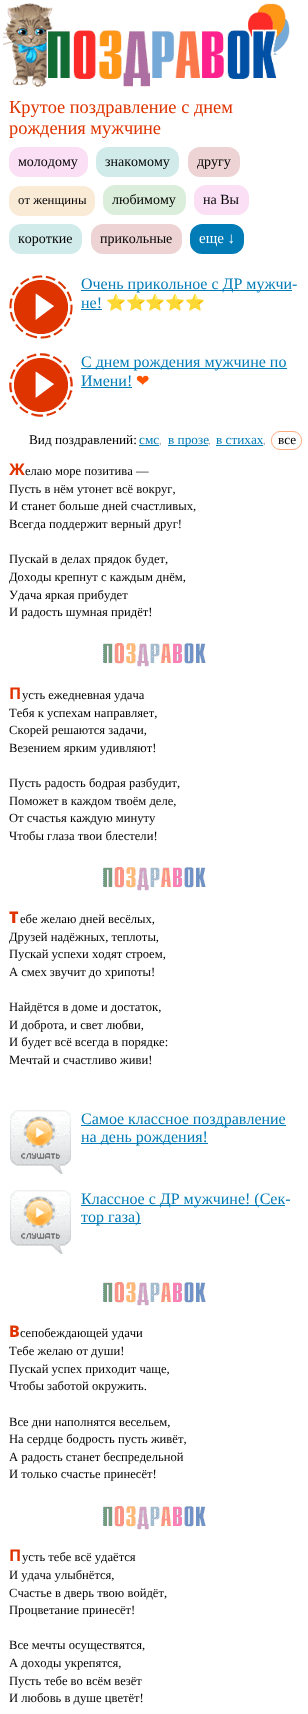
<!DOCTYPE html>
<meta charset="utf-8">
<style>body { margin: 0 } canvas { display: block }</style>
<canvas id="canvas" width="308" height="1714"></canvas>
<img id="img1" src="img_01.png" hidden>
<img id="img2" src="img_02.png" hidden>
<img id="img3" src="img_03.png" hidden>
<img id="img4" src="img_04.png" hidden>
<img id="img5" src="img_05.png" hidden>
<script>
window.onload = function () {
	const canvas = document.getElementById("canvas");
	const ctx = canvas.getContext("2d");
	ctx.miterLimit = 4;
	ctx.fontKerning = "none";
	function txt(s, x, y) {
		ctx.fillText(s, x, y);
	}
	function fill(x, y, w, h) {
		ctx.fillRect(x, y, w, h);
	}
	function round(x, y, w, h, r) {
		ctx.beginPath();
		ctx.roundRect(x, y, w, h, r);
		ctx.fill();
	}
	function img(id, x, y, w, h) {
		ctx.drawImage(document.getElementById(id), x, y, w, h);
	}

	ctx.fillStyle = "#FFFFFF";
	fill(0, 0, 308, 1714);
	img("img1", 3, 3, 287, 84);
	ctx.fillStyle = "#FBDFF5";
	round(9, 147, 79, 30, 12);
	ctx.fillStyle = "#D1EBEB";
	round(96, 147, 83, 30, 12);
	ctx.fillStyle = "#EDD3D3";
	round(188, 147, 52, 30, 12);
	ctx.fillStyle = "#FAEBD7";
	round(9, 186, 86, 30, 12);
	ctx.fillStyle = "#DBEEDB";
	round(103, 185, 83, 30, 12);
	ctx.fillStyle = "#FBDFF5";
	round(194, 185, 55, 30, 12);
	ctx.fillStyle = "#D1EBEB";
	round(9, 224, 73, 30, 12);
	ctx.fillStyle = "#EDD3D3";
	round(91, 224, 91, 30, 12);
	ctx.fillStyle = "#027CB7";
	round(190, 224, 54, 30, 12);
	img("img2", 9, 275, 64, 64);
	fill(81, 290, 211, 1);
	fill(81, 309, 21, 1);
	img("img3", 9, 353, 64, 64);
	fill(81, 368, 206, 1);
	fill(81, 387, 51, 1);
	fill(139, 445, 20, 1);
	fill(168, 445, 40, 1);
	fill(216, 445, 47, 1);
	ctx.beginPath();
	ctx.roundRect(271.5, 431.5, 30, 18, 8.5);
	ctx.strokeStyle = "#FFAC80";
	ctx.stroke();
	img("img4", 103, 643, 103, 24);
	img("img4", 103, 867, 103, 24);
	img("img5", 10, 1110, 61, 64);
	fill(81, 1125, 205, 1);
	fill(81, 1143, 127, 1);
	img("img5", 10, 1190, 61, 64);
	fill(81, 1205, 204, 1);
	fill(81, 1223, 60, 1);
	img("img4", 103, 1282, 103, 24);
	img("img4", 103, 1506, 103, 24);
	ctx.font = "18.4px Liberation Serif";
	ctx.fillStyle = "#E03400";
	txt("Крутое поздравление с днем", 9, 113);
	txt("рождения мужчине", 9, 134);
	ctx.font = "14px Liberation Serif";
	ctx.fillStyle = "#000000";
	txt("молодому", 18, 166);
	txt("знакомому", 105, 166);
	txt("другу", 197, 166);
	ctx.font = "12.75px Liberation Serif";
	txt("от женщины", 18, 204);
	ctx.font = "14px Liberation Serif";
	txt("любимому", 112, 204);
	txt("на Вы", 203, 204);
	txt("короткие", 18, 243);
	txt("прикольные", 100, 243);
	ctx.font = "15px Liberation Serif";
	ctx.fillStyle = "#FFFFFF";
	txt("еще ↓", 199, 243);
	ctx.font = "16px Liberation Serif";
	ctx.fillStyle = "#027CB7";
	txt("Очень прикольное с ДР мужчи-", 81, 289);
	txt("не!", 81, 308);
	ctx.font = "16px Noto Color Emoji";
	ctx.fillStyle = "#FF5500";
	txt("⭐⭐⭐⭐⭐", 106, 308);
	ctx.font = "16px Liberation Serif";
	ctx.fillStyle = "#027CB7";
	txt("С днем рождения мужчине по", 81, 367);
	txt("Имени!", 81, 386);
	ctx.font = "16px DejaVu Sans";
	ctx.fillStyle = "#FF5500";
	txt("❤", 136, 386);
	ctx.font = "13.25px Liberation Serif";
	ctx.fillStyle = "#000000";
	txt("Вид поздравлений:", 29, 444);
	ctx.fillStyle = "#027CB7";
	txt("смс", 139, 444);
	ctx.font = "11px Liberation Serif";
	ctx.fillStyle = "#AAAAAA";
	txt(",", 159, 444);
	ctx.font = "13.25px Liberation Serif";
	ctx.fillStyle = "#027CB7";
	txt("в прозе", 168, 444);
	ctx.font = "11px Liberation Serif";
	ctx.fillStyle = "#AAAAAA";
	txt(",", 208, 444);
	ctx.font = "13.25px Liberation Serif";
	ctx.fillStyle = "#027CB7";
	txt("в стихах", 216, 444);
	ctx.font = "11px Liberation Serif";
	ctx.fillStyle = "#AAAAAA";
	txt(",", 263, 444);
	ctx.font = "13.25px Liberation Serif";
	ctx.fillStyle = "#000000";
	txt("все", 278, 444);
	ctx.font = "bold 16px Noto Sans";
	ctx.fillStyle = "#E03400";
	txt("Ж", 9, 475);
	ctx.font = "12.6px Liberation Serif";
	ctx.fillStyle = "#000000";
	txt("елаю море позитива —", 25, 475);
	txt("Пусть в нём утонет всё вокруг,", 9, 493);
	txt("И станет больше дней счастливых,", 9, 510);
	txt("Всегда поддержит верный друг!", 9, 528);
	txt("Пускай в делах прядок будет,", 9, 563);
	txt("Доходы крепнут с каждым днём,", 9, 581);
	txt("Удача яркая прибудет", 9, 599);
	txt("И радость шумная придёт!", 9, 616);
	ctx.font = "bold 16px Noto Sans";
	ctx.fillStyle = "#E03400";
	txt("П", 9, 699);
	ctx.font = "12.6px Liberation Serif";
	ctx.fillStyle = "#000000";
	txt("усть ежедневная удача", 22, 699);
	txt("Тебя к успехам направляет,", 9, 717);
	txt("Скорей решаются задачи,", 9, 734);
	txt("Везением ярким удивляют!", 9, 752);
	txt("Пусть радость бодрая разбудит,", 9, 787);
	txt("Поможет в каждом твоём деле,", 9, 805);
	txt("От счастья каждую минуту", 9, 822);
	txt("Чтобы глаза твои блестели!", 9, 840);
	ctx.font = "900 16px Noto Sans";
	ctx.fillStyle = "#E03400";
	txt("Т", 9, 923);
	ctx.font = "12.6px Liberation Serif";
	ctx.fillStyle = "#000000";
	txt("ебе желаю дней весёлых,", 20, 923);
	txt("Друзей надёжных, теплоты,", 9, 941);
	txt("Пускай успехи ходят строем,", 9, 958);
	txt("А смех звучит до хрипоты!", 9, 976);
	txt("Найдётся в доме и достаток,", 9, 1011);
	txt("И доброта, и свет любви,", 9, 1029);
	txt("И будет всё всегда в порядке:", 9, 1046);
	txt("Мечтай и счастливо живи!", 9, 1064);
	ctx.font = "16px Liberation Serif";
	ctx.fillStyle = "#027CB7";
	txt("Самое классное поздравление", 81, 1124);
	txt("на день рождения!", 81, 1142);
	txt("Классное с ДР мужчине! (Сек-", 81, 1204);
	txt("тор газа)", 81, 1222);
	ctx.font = "800 16px Noto Sans";
	ctx.fillStyle = "#E03400";
	txt("В", 9, 1337);
	ctx.font = "12.6px Liberation Serif";
	ctx.fillStyle = "#000000";
	txt("сепобеждающей удачи", 20, 1337);
	txt("Тебе желаю от души!", 9, 1355);
	txt("Пускай успех приходит чаще,", 9, 1373);
	txt("Чтобы заботой окружить.", 9, 1390);
	txt("Все дни наполнятся весельем,", 9, 1426);
	txt("На сердце бодрость пусть живёт,", 9, 1443);
	txt("А радость станет беспредельной", 9, 1461);
	txt("И только счастье принесёт!", 9, 1478);
	ctx.font = "bold 16px Noto Sans";
	ctx.fillStyle = "#E03400";
	txt("П", 9, 1561);
	ctx.font = "12.6px Liberation Serif";
	ctx.fillStyle = "#000000";
	txt("усть тебе всё удаётся", 22, 1561);
	txt("И удача улыбнётся,", 9, 1579);
	txt("Счастье в дверь твою войдёт,", 9, 1597);
	txt("Процветание принесёт!", 9, 1614);
	txt("Все мечты осуществятся,", 9, 1649);
	txt("А доходы укрепятся,", 9, 1667);
	txt("Пусть тебе во всём везёт", 9, 1685);
	txt("И любовь в душе цветёт!", 9, 1702);
};
</script>
